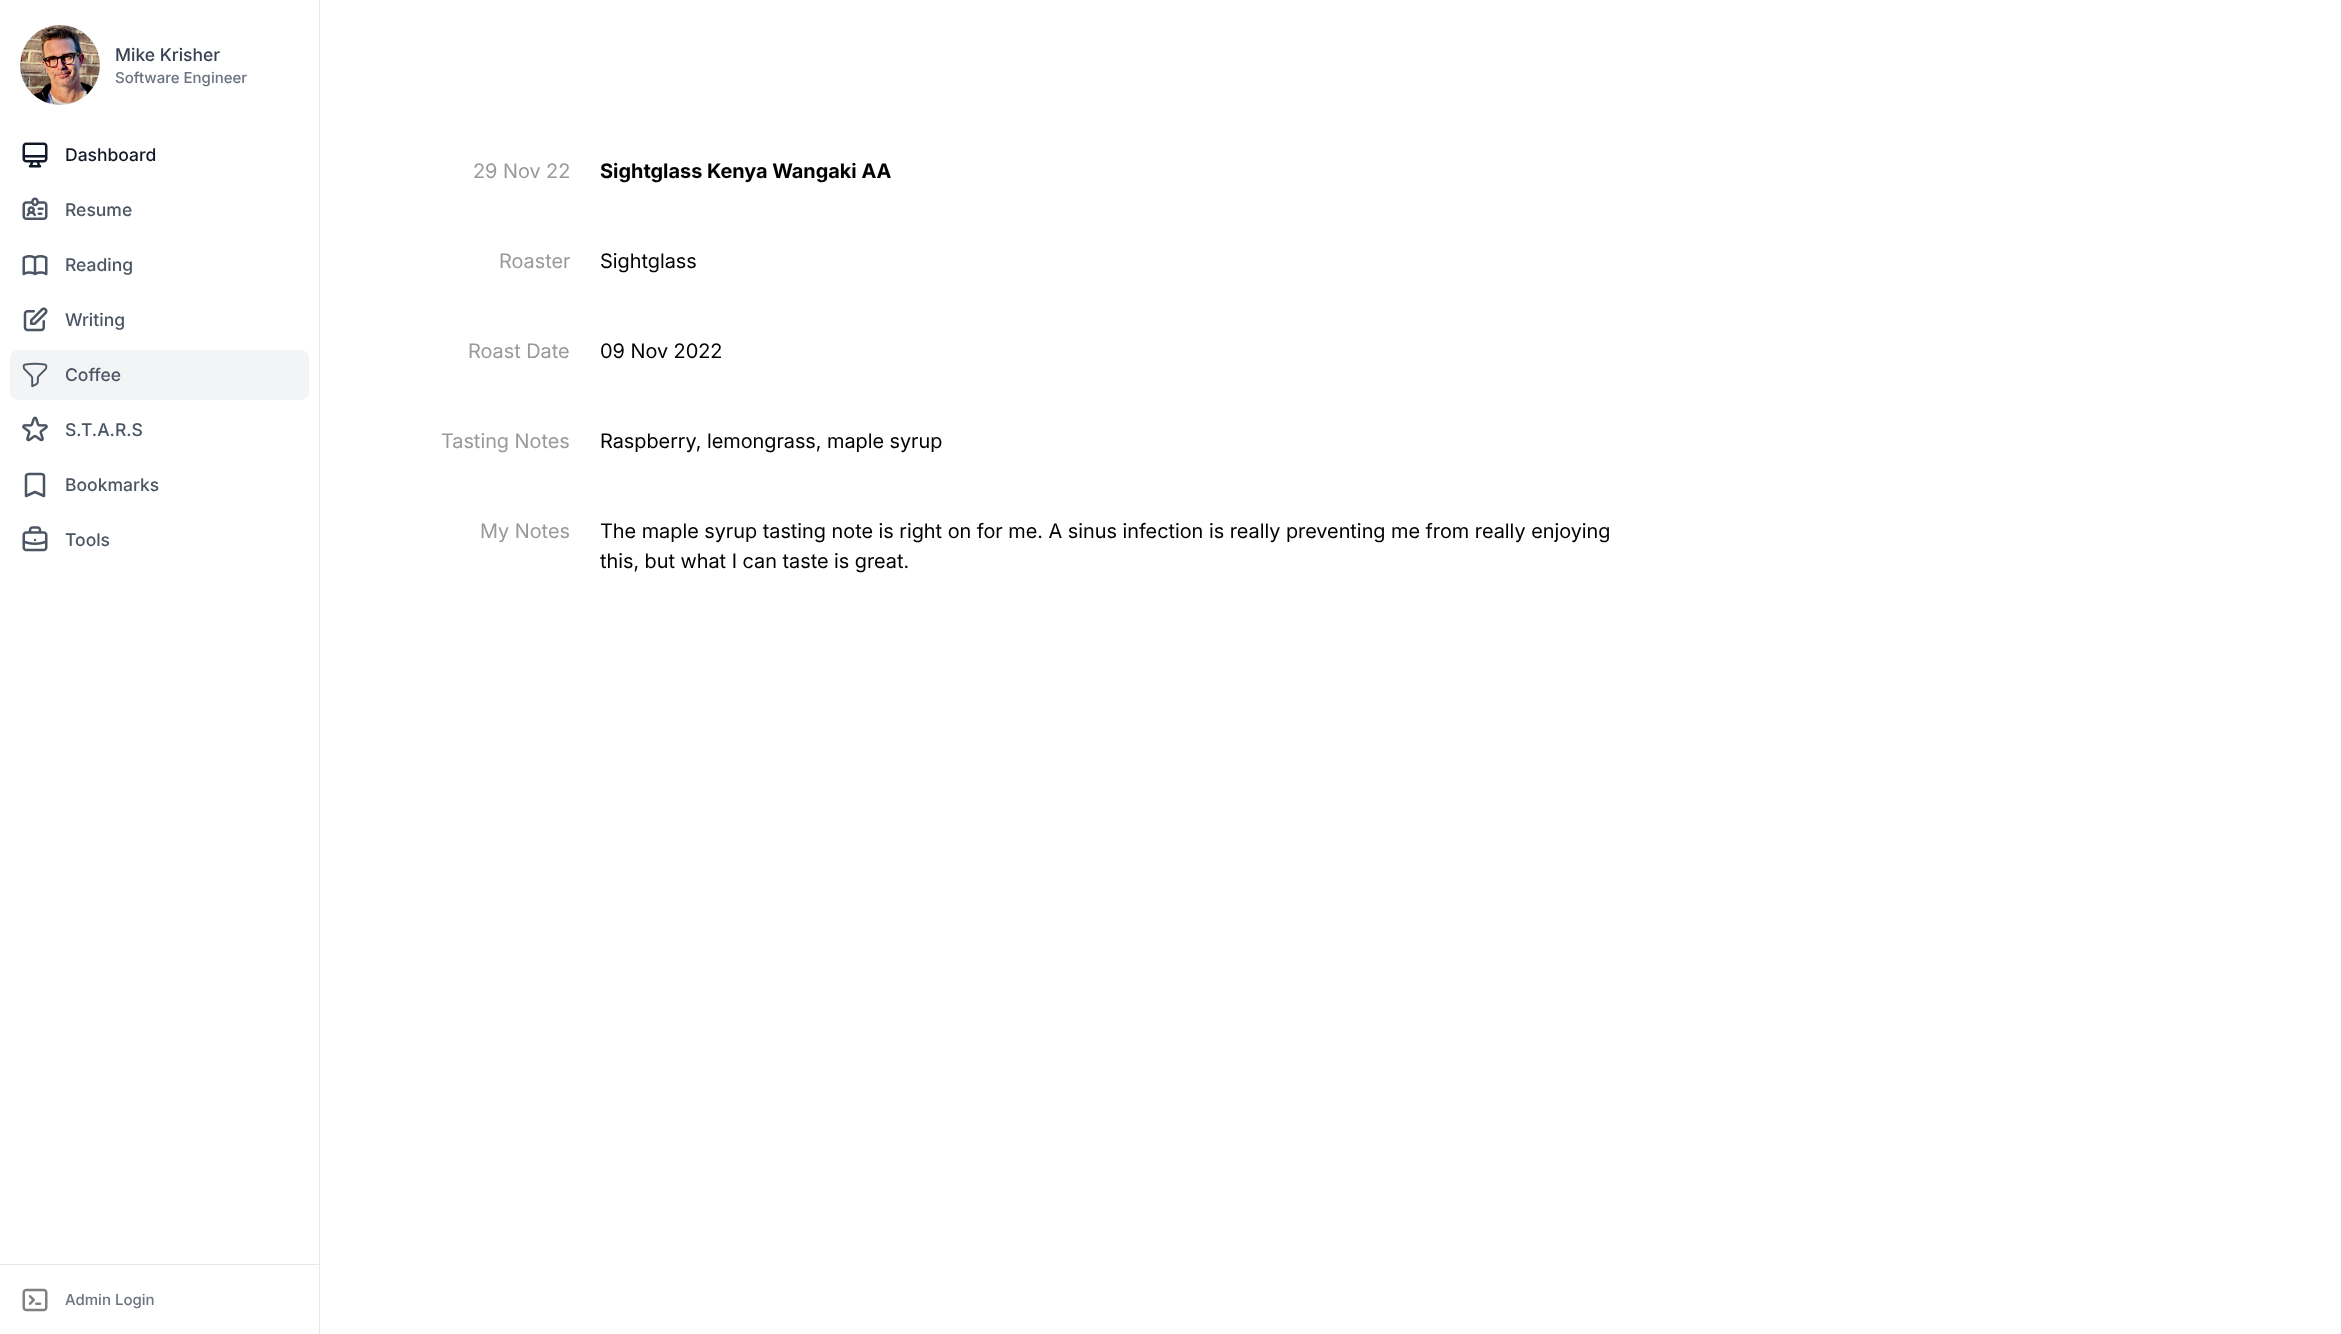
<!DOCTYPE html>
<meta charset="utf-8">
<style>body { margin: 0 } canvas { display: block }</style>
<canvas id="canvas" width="2341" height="1334"></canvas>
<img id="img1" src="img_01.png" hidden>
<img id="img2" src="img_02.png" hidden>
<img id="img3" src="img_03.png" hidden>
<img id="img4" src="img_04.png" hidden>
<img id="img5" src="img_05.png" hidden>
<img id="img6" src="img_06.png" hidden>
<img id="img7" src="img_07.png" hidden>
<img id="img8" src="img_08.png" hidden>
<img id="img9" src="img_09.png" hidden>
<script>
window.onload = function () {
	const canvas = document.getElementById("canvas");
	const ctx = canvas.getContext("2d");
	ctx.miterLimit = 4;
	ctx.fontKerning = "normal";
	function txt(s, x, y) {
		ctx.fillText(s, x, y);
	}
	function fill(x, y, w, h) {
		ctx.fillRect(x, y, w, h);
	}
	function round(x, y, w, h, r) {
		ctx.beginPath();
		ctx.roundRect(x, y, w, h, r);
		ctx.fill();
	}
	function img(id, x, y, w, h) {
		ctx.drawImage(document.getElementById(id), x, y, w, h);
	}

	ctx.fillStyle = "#FFFFFF";
	fill(0, 0, 2341, 1334);
	ctx.fillStyle = "#E5E7EB";
	fill(319, 0, 1, 1334);
	img("img1", 20, 25, 80, 80);
	img("img2", 22, 142, 26, 26);
	img("img3", 22, 197, 26, 23);
	img("img4", 22, 255, 26, 21);
	img("img5", 23, 307, 25, 25);
	ctx.fillStyle = "#F3F4F6";
	round(10, 350, 299, 50, 8);
	img("img6", 22, 362, 26, 26);
	img("img7", 22, 416, 26, 26);
	ctx.beginPath();
	ctx.moveTo(26, 476);
	ctx.bezierCurveTo(26, 475, 27.5, 474, 29, 474);
	ctx.lineTo(41, 474);
	ctx.bezierCurveTo(42.5, 474, 44, 475, 44, 476);
	ctx.lineTo(44, 496);
	ctx.lineTo(35, 492);
	ctx.lineTo(26, 496);
	ctx.closePath();
	ctx.strokeStyle = "#4B5563";
	ctx.lineWidth = 2.5;
	ctx.lineCap = "round";
	ctx.lineJoin = "round";
	ctx.stroke();
	img("img8", 22, 526, 26, 26);
	ctx.fillStyle = "#E5E7EB";
	fill(0, 1264, 319, 1);
	img("img9", 22, 1288, 26, 24);
	ctx.font = "500 17.5px Inter";
	ctx.fillStyle = "#374151";
	txt("Mike Krisher", 115, 61);
	ctx.font = "500 15px Inter";
	ctx.fillStyle = "#6B7280";
	txt("Software Engineer", 115, 83);
	ctx.font = "500 17.5px Inter";
	ctx.fillStyle = "#111827";
	txt("Dashboard", 65, 161);
	ctx.fillStyle = "#4B5563";
	txt("Resume", 65, 216);
	txt("Reading", 65, 271);
	txt("Writing", 65, 326);
	txt("Coffee", 65, 381);
	txt("S.T.A.R.S", 65, 436);
	txt("Bookmarks", 65, 491);
	txt("Tools", 65, 546);
	ctx.font = "500 15px Inter";
	ctx.fillStyle = "#6B7280";
	txt("Admin Login", 65, 1305);
	ctx.font = "20px Inter";
	ctx.fillStyle = "#999999";
	txt("29 Nov 22", 473, 178);
	ctx.font = "bold 20px Inter";
	ctx.fillStyle = "#000000";
	txt("Sightglass Kenya Wangaki AA", 600, 178);
	ctx.font = "20px Inter";
	ctx.fillStyle = "#999999";
	txt("Roaster", 499, 268);
	ctx.fillStyle = "#000000";
	txt("Sightglass", 600, 268);
	ctx.fillStyle = "#999999";
	txt("Roast Date", 468, 358);
	ctx.fillStyle = "#000000";
	txt("09 Nov 2022", 600, 358);
	ctx.fillStyle = "#999999";
	txt("Tasting Notes", 441, 448);
	ctx.fillStyle = "#000000";
	txt("Raspberry, lemongrass, maple syrup", 600, 448);
	ctx.fillStyle = "#999999";
	txt("My Notes", 480, 538);
	ctx.fillStyle = "#000000";
	txt("The maple syrup tasting note is right on for me. A sinus infection is really preventing me from really enjoying", 600, 538);
	txt("this, but what I can taste is great.", 600, 568);
};
</script>
